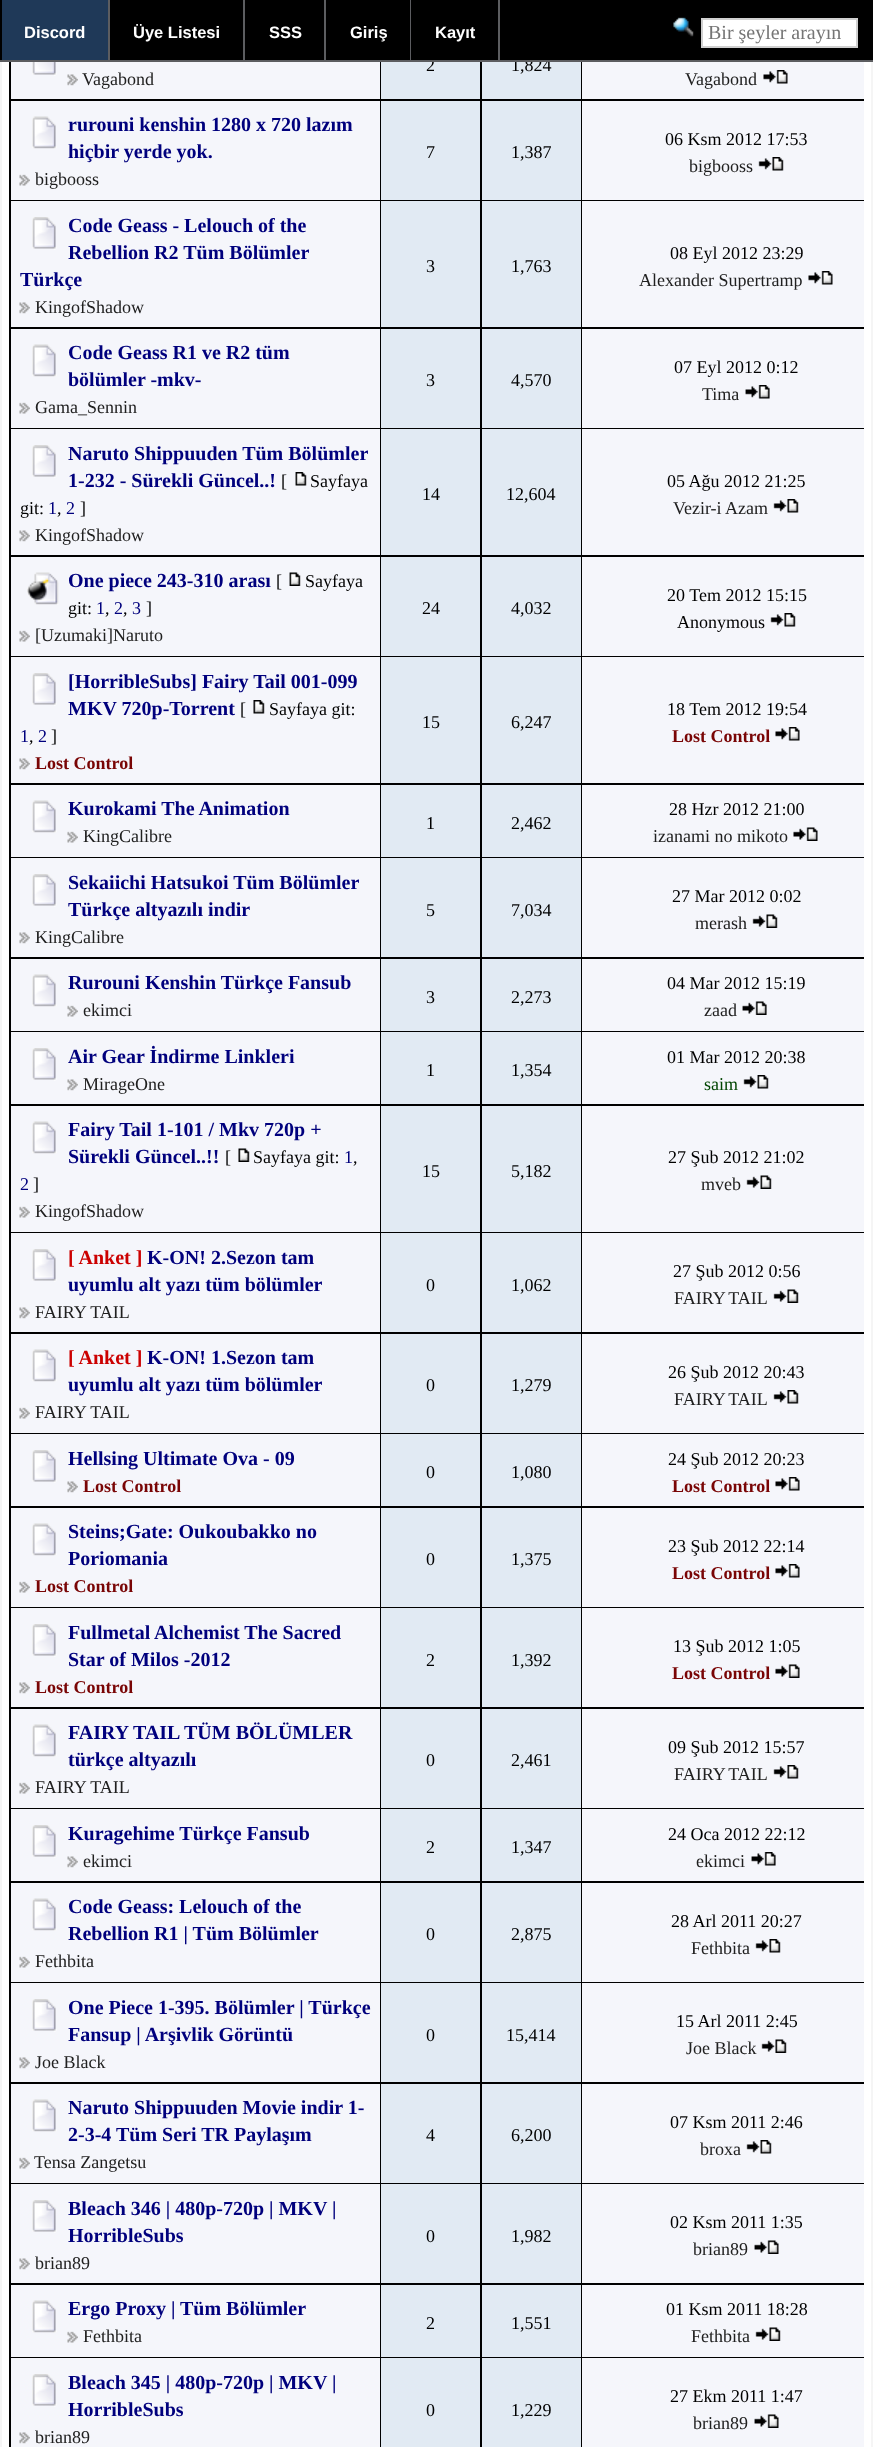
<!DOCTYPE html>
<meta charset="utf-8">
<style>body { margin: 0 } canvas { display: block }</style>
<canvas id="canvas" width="873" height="2447"></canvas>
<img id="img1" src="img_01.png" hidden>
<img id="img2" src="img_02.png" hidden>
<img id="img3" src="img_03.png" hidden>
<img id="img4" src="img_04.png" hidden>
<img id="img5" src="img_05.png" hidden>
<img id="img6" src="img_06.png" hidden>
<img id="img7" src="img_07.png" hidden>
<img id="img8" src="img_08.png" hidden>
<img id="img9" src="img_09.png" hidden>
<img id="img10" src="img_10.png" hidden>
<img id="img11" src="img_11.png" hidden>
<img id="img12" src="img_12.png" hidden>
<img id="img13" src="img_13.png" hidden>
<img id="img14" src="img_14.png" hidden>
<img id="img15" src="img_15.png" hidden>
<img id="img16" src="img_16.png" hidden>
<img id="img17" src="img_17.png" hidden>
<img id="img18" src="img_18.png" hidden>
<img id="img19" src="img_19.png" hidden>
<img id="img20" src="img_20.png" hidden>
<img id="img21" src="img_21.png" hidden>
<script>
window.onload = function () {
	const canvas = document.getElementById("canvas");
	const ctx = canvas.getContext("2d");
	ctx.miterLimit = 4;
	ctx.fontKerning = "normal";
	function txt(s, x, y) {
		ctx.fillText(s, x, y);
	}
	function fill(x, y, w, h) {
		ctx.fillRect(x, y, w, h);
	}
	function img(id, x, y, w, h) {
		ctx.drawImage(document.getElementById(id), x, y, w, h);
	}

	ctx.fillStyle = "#FFFFFF";
	fill(0, 0, 873, 2447);
	ctx.strokeStyle = "#F5F5F5";
	ctx.lineWidth = 2;
	ctx.strokeRect(1, -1, 871, 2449);
	ctx.fillStyle = "#000000";
	fill(110, 0, 763, 60);
	ctx.fillStyle = "#1F3958";
	fill(2, 0, 106, 60);
	ctx.fillStyle = "#5C5D60";
	fill(108, 0, 2, 60);
	ctx.fillStyle = "#000000";
	fill(0, 0, 2, 60);
	ctx.fillStyle = "#5C5D60";
	fill(243, 0, 2, 60);
	fill(324, 0, 2, 60);
	fill(410, 0, 1, 60);
	fill(498, 0, 2, 60);
	img("img1", 673, 17, 21, 20);
	ctx.fillStyle = "#FFFFFF";
	ctx.beginPath();
	ctx.rect(702, 19, 155, 28);
	ctx.fill();
	ctx.strokeStyle = "#D0D0D0";
	ctx.stroke();
	ctx.fillStyle = "#000000";
	fill(9, 99, 855, 2);
	fill(9, 62, 2, 39);
	ctx.fillStyle = "#E1EAF3";
	fill(381, 62, 99, 37);
	ctx.fillStyle = "#000000";
	fill(480, 62, 2, 37);
	ctx.fillStyle = "#E1EAF3";
	fill(482, 62, 99, 37);
	ctx.fillStyle = "#000000";
	fill(581, 62, 1, 37);
	ctx.fillStyle = "#F5F6FB";
	fill(11, 62, 369, 37);
	ctx.fillStyle = "#000000";
	fill(380, 62, 1, 37);
	img("img2", 32, 62, 25, 14);
	img("img3", 67, 74, 11, 12);
	ctx.fillStyle = "#F5F6FB";
	fill(582, 62, 282, 37);
	img("img4", 763, 70, 25, 14);
	ctx.fillStyle = "#000000";
	fill(9, 200, 855, 1);
	fill(9, 101, 2, 100);
	ctx.fillStyle = "#F5F6FB";
	fill(11, 101, 369, 99);
	ctx.fillStyle = "#000000";
	fill(380, 101, 1, 99);
	img("img5", 32, 116, 25, 33);
	img("img6", 19, 174, 11, 12);
	ctx.fillStyle = "#E1EAF3";
	fill(381, 101, 99, 99);
	ctx.fillStyle = "#000000";
	fill(480, 101, 2, 99);
	ctx.fillStyle = "#E1EAF3";
	fill(482, 101, 99, 99);
	ctx.fillStyle = "#000000";
	fill(581, 101, 1, 99);
	ctx.fillStyle = "#F5F6FB";
	fill(582, 101, 282, 99);
	img("img7", 758, 157, 26, 14);
	ctx.fillStyle = "#000000";
	fill(9, 327, 855, 2);
	fill(9, 201, 2, 128);
	ctx.fillStyle = "#F5F6FB";
	fill(11, 201, 369, 126);
	ctx.fillStyle = "#000000";
	fill(380, 201, 1, 126);
	img("img8", 32, 217, 25, 33);
	img("img3", 19, 302, 11, 12);
	ctx.fillStyle = "#E1EAF3";
	fill(381, 201, 99, 126);
	ctx.fillStyle = "#000000";
	fill(480, 201, 2, 126);
	ctx.fillStyle = "#E1EAF3";
	fill(482, 201, 99, 126);
	ctx.fillStyle = "#000000";
	fill(581, 201, 1, 126);
	ctx.fillStyle = "#F5F6FB";
	fill(582, 201, 282, 126);
	img("img4", 808, 271, 25, 14);
	ctx.fillStyle = "#000000";
	fill(9, 428, 855, 1);
	fill(9, 329, 2, 100);
	ctx.fillStyle = "#F5F6FB";
	fill(11, 329, 369, 99);
	ctx.fillStyle = "#000000";
	fill(380, 329, 1, 99);
	img("img5", 32, 344, 25, 33);
	img("img6", 19, 402, 11, 12);
	ctx.fillStyle = "#E1EAF3";
	fill(381, 329, 99, 99);
	ctx.fillStyle = "#000000";
	fill(480, 329, 2, 99);
	ctx.fillStyle = "#E1EAF3";
	fill(482, 329, 99, 99);
	ctx.fillStyle = "#000000";
	fill(581, 329, 1, 99);
	ctx.fillStyle = "#F5F6FB";
	fill(582, 329, 282, 99);
	img("img9", 745, 385, 25, 14);
	ctx.fillStyle = "#000000";
	fill(9, 555, 855, 2);
	fill(9, 429, 2, 128);
	ctx.fillStyle = "#F5F6FB";
	fill(11, 429, 369, 126);
	ctx.fillStyle = "#000000";
	fill(380, 429, 1, 126);
	img("img8", 32, 445, 25, 33);
	img("img10", 295, 472, 12, 14);
	img("img3", 19, 530, 11, 12);
	ctx.fillStyle = "#E1EAF3";
	fill(381, 429, 99, 126);
	ctx.fillStyle = "#000000";
	fill(480, 429, 2, 126);
	ctx.fillStyle = "#E1EAF3";
	fill(482, 429, 99, 126);
	ctx.fillStyle = "#000000";
	fill(581, 429, 1, 126);
	ctx.fillStyle = "#F5F6FB";
	fill(582, 429, 282, 126);
	img("img7", 773, 499, 26, 14);
	ctx.fillStyle = "#000000";
	fill(9, 656, 855, 1);
	fill(9, 557, 2, 100);
	ctx.fillStyle = "#F5F6FB";
	fill(11, 557, 369, 99);
	ctx.fillStyle = "#000000";
	fill(380, 557, 1, 99);
	img("img11", 27, 572, 32, 33);
	img("img12", 289, 572, 12, 14);
	img("img6", 19, 630, 11, 12);
	ctx.fillStyle = "#E1EAF3";
	fill(381, 557, 99, 99);
	ctx.fillStyle = "#000000";
	fill(480, 557, 2, 99);
	ctx.fillStyle = "#E1EAF3";
	fill(482, 557, 99, 99);
	ctx.fillStyle = "#000000";
	fill(581, 557, 1, 99);
	ctx.fillStyle = "#F5F6FB";
	fill(582, 557, 282, 99);
	img("img7", 770, 613, 26, 14);
	ctx.fillStyle = "#000000";
	fill(9, 783, 855, 2);
	fill(9, 657, 2, 128);
	ctx.fillStyle = "#F5F6FB";
	fill(11, 657, 369, 126);
	ctx.fillStyle = "#000000";
	fill(380, 657, 1, 126);
	img("img8", 32, 673, 25, 33);
	img("img13", 253, 700, 12, 14);
	img("img3", 19, 758, 11, 12);
	ctx.fillStyle = "#E1EAF3";
	fill(381, 657, 99, 126);
	ctx.fillStyle = "#000000";
	fill(480, 657, 2, 126);
	ctx.fillStyle = "#E1EAF3";
	fill(482, 657, 99, 126);
	ctx.fillStyle = "#000000";
	fill(581, 657, 1, 126);
	ctx.fillStyle = "#F5F6FB";
	fill(582, 657, 282, 126);
	img("img4", 775, 727, 25, 14);
	ctx.fillStyle = "#000000";
	fill(9, 857, 855, 1);
	fill(9, 785, 2, 73);
	ctx.fillStyle = "#F5F6FB";
	fill(11, 785, 369, 72);
	ctx.fillStyle = "#000000";
	fill(380, 785, 1, 72);
	img("img5", 32, 800, 25, 33);
	img("img6", 67, 831, 11, 12);
	ctx.fillStyle = "#E1EAF3";
	fill(381, 785, 99, 72);
	ctx.fillStyle = "#000000";
	fill(480, 785, 2, 72);
	ctx.fillStyle = "#E1EAF3";
	fill(482, 785, 99, 72);
	ctx.fillStyle = "#000000";
	fill(581, 785, 1, 72);
	ctx.fillStyle = "#F5F6FB";
	fill(582, 785, 282, 72);
	img("img14", 793, 827, 25, 14);
	ctx.fillStyle = "#000000";
	fill(9, 957, 855, 2);
	fill(9, 858, 2, 101);
	ctx.fillStyle = "#F5F6FB";
	fill(11, 858, 369, 99);
	ctx.fillStyle = "#000000";
	fill(380, 858, 1, 99);
	img("img8", 32, 874, 25, 33);
	img("img3", 19, 932, 11, 12);
	ctx.fillStyle = "#E1EAF3";
	fill(381, 858, 99, 99);
	ctx.fillStyle = "#000000";
	fill(480, 858, 2, 99);
	ctx.fillStyle = "#E1EAF3";
	fill(482, 858, 99, 99);
	ctx.fillStyle = "#000000";
	fill(581, 858, 1, 99);
	ctx.fillStyle = "#F5F6FB";
	fill(582, 858, 282, 99);
	img("img15", 752, 914, 26, 14);
	ctx.fillStyle = "#000000";
	fill(9, 1031, 855, 1);
	fill(9, 959, 2, 73);
	ctx.fillStyle = "#F5F6FB";
	fill(11, 959, 369, 72);
	ctx.fillStyle = "#000000";
	fill(380, 959, 1, 72);
	img("img5", 32, 974, 25, 33);
	img("img6", 67, 1005, 11, 12);
	ctx.fillStyle = "#E1EAF3";
	fill(381, 959, 99, 72);
	ctx.fillStyle = "#000000";
	fill(480, 959, 2, 72);
	ctx.fillStyle = "#E1EAF3";
	fill(482, 959, 99, 72);
	ctx.fillStyle = "#000000";
	fill(581, 959, 1, 72);
	ctx.fillStyle = "#F5F6FB";
	fill(582, 959, 282, 72);
	img("img16", 742, 1001, 25, 14);
	ctx.fillStyle = "#000000";
	fill(9, 1104, 855, 2);
	fill(9, 1032, 2, 74);
	ctx.fillStyle = "#F5F6FB";
	fill(11, 1032, 369, 72);
	ctx.fillStyle = "#000000";
	fill(380, 1032, 1, 72);
	img("img8", 32, 1048, 25, 33);
	img("img3", 67, 1079, 11, 12);
	ctx.fillStyle = "#E1EAF3";
	fill(381, 1032, 99, 72);
	ctx.fillStyle = "#000000";
	fill(480, 1032, 2, 72);
	ctx.fillStyle = "#E1EAF3";
	fill(482, 1032, 99, 72);
	ctx.fillStyle = "#000000";
	fill(581, 1032, 1, 72);
	ctx.fillStyle = "#F5F6FB";
	fill(582, 1032, 282, 72);
	img("img17", 743, 1075, 26, 14);
	ctx.fillStyle = "#000000";
	fill(9, 1232, 855, 1);
	fill(9, 1106, 2, 127);
	ctx.fillStyle = "#F5F6FB";
	fill(11, 1106, 369, 126);
	ctx.fillStyle = "#000000";
	fill(380, 1106, 1, 126);
	img("img5", 32, 1121, 25, 33);
	img("img18", 238, 1148, 12, 14);
	img("img6", 19, 1206, 11, 12);
	ctx.fillStyle = "#E1EAF3";
	fill(381, 1106, 99, 126);
	ctx.fillStyle = "#000000";
	fill(480, 1106, 2, 126);
	ctx.fillStyle = "#E1EAF3";
	fill(482, 1106, 99, 126);
	ctx.fillStyle = "#000000";
	fill(581, 1106, 1, 126);
	ctx.fillStyle = "#F5F6FB";
	fill(582, 1106, 282, 126);
	img("img19", 746, 1175, 26, 14);
	ctx.fillStyle = "#000000";
	fill(9, 1332, 855, 2);
	fill(9, 1233, 2, 101);
	ctx.fillStyle = "#F5F6FB";
	fill(11, 1233, 369, 99);
	ctx.fillStyle = "#000000";
	fill(380, 1233, 1, 99);
	img("img8", 32, 1249, 25, 33);
	img("img3", 19, 1307, 11, 12);
	ctx.fillStyle = "#E1EAF3";
	fill(381, 1233, 99, 99);
	ctx.fillStyle = "#000000";
	fill(480, 1233, 2, 99);
	ctx.fillStyle = "#E1EAF3";
	fill(482, 1233, 99, 99);
	ctx.fillStyle = "#000000";
	fill(581, 1233, 1, 99);
	ctx.fillStyle = "#F5F6FB";
	fill(582, 1233, 282, 99);
	img("img20", 773, 1289, 26, 14);
	ctx.fillStyle = "#000000";
	fill(9, 1433, 855, 1);
	fill(9, 1334, 2, 100);
	ctx.fillStyle = "#F5F6FB";
	fill(11, 1334, 369, 99);
	ctx.fillStyle = "#000000";
	fill(380, 1334, 1, 99);
	img("img5", 32, 1349, 25, 33);
	img("img6", 19, 1407, 11, 12);
	ctx.fillStyle = "#E1EAF3";
	fill(381, 1334, 99, 99);
	ctx.fillStyle = "#000000";
	fill(480, 1334, 2, 99);
	ctx.fillStyle = "#E1EAF3";
	fill(482, 1334, 99, 99);
	ctx.fillStyle = "#000000";
	fill(581, 1334, 1, 99);
	ctx.fillStyle = "#F5F6FB";
	fill(582, 1334, 282, 99);
	img("img7", 773, 1390, 26, 14);
	ctx.fillStyle = "#000000";
	fill(9, 1506, 855, 2);
	fill(9, 1434, 2, 74);
	ctx.fillStyle = "#F5F6FB";
	fill(11, 1434, 369, 72);
	ctx.fillStyle = "#000000";
	fill(380, 1434, 1, 72);
	img("img8", 32, 1450, 25, 33);
	img("img3", 67, 1481, 11, 12);
	ctx.fillStyle = "#E1EAF3";
	fill(381, 1434, 99, 72);
	ctx.fillStyle = "#000000";
	fill(480, 1434, 2, 72);
	ctx.fillStyle = "#E1EAF3";
	fill(482, 1434, 99, 72);
	ctx.fillStyle = "#000000";
	fill(581, 1434, 1, 72);
	ctx.fillStyle = "#F5F6FB";
	fill(582, 1434, 282, 72);
	img("img4", 775, 1477, 25, 14);
	ctx.fillStyle = "#000000";
	fill(9, 1607, 855, 1);
	fill(9, 1508, 2, 100);
	ctx.fillStyle = "#F5F6FB";
	fill(11, 1508, 369, 99);
	ctx.fillStyle = "#000000";
	fill(380, 1508, 1, 99);
	img("img5", 32, 1523, 25, 33);
	img("img6", 19, 1581, 11, 12);
	ctx.fillStyle = "#E1EAF3";
	fill(381, 1508, 99, 99);
	ctx.fillStyle = "#000000";
	fill(480, 1508, 2, 99);
	ctx.fillStyle = "#E1EAF3";
	fill(482, 1508, 99, 99);
	ctx.fillStyle = "#000000";
	fill(581, 1508, 1, 99);
	ctx.fillStyle = "#F5F6FB";
	fill(582, 1508, 282, 99);
	img("img4", 775, 1564, 25, 14);
	ctx.fillStyle = "#000000";
	fill(9, 1707, 855, 2);
	fill(9, 1608, 2, 101);
	ctx.fillStyle = "#F5F6FB";
	fill(11, 1608, 369, 99);
	ctx.fillStyle = "#000000";
	fill(380, 1608, 1, 99);
	img("img8", 32, 1624, 25, 33);
	img("img3", 19, 1682, 11, 12);
	ctx.fillStyle = "#E1EAF3";
	fill(381, 1608, 99, 99);
	ctx.fillStyle = "#000000";
	fill(480, 1608, 2, 99);
	ctx.fillStyle = "#E1EAF3";
	fill(482, 1608, 99, 99);
	ctx.fillStyle = "#000000";
	fill(581, 1608, 1, 99);
	ctx.fillStyle = "#F5F6FB";
	fill(582, 1608, 282, 99);
	img("img14", 775, 1664, 25, 14);
	ctx.fillStyle = "#000000";
	fill(9, 1808, 855, 1);
	fill(9, 1709, 2, 100);
	ctx.fillStyle = "#F5F6FB";
	fill(11, 1709, 369, 99);
	ctx.fillStyle = "#000000";
	fill(380, 1709, 1, 99);
	img("img5", 32, 1724, 25, 33);
	img("img6", 19, 1782, 11, 12);
	ctx.fillStyle = "#E1EAF3";
	fill(381, 1709, 99, 99);
	ctx.fillStyle = "#000000";
	fill(480, 1709, 2, 99);
	ctx.fillStyle = "#E1EAF3";
	fill(482, 1709, 99, 99);
	ctx.fillStyle = "#000000";
	fill(581, 1709, 1, 99);
	ctx.fillStyle = "#F5F6FB";
	fill(582, 1709, 282, 99);
	img("img7", 773, 1765, 26, 14);
	ctx.fillStyle = "#000000";
	fill(9, 1881, 855, 2);
	fill(9, 1809, 2, 74);
	ctx.fillStyle = "#F5F6FB";
	fill(11, 1809, 369, 72);
	ctx.fillStyle = "#000000";
	fill(380, 1809, 1, 72);
	img("img8", 32, 1825, 25, 33);
	img("img3", 67, 1856, 11, 12);
	ctx.fillStyle = "#E1EAF3";
	fill(381, 1809, 99, 72);
	ctx.fillStyle = "#000000";
	fill(480, 1809, 2, 72);
	ctx.fillStyle = "#E1EAF3";
	fill(482, 1809, 99, 72);
	ctx.fillStyle = "#000000";
	fill(581, 1809, 1, 72);
	ctx.fillStyle = "#F5F6FB";
	fill(582, 1809, 282, 72);
	img("img9", 751, 1852, 25, 14);
	ctx.fillStyle = "#000000";
	fill(9, 1982, 855, 1);
	fill(9, 1883, 2, 100);
	ctx.fillStyle = "#F5F6FB";
	fill(11, 1883, 369, 99);
	ctx.fillStyle = "#000000";
	fill(380, 1883, 1, 99);
	img("img5", 32, 1898, 25, 33);
	img("img6", 19, 1956, 11, 12);
	ctx.fillStyle = "#E1EAF3";
	fill(381, 1883, 99, 99);
	ctx.fillStyle = "#000000";
	fill(480, 1883, 2, 99);
	ctx.fillStyle = "#E1EAF3";
	fill(482, 1883, 99, 99);
	ctx.fillStyle = "#000000";
	fill(581, 1883, 1, 99);
	ctx.fillStyle = "#F5F6FB";
	fill(582, 1883, 282, 99);
	img("img7", 755, 1939, 26, 14);
	ctx.fillStyle = "#000000";
	fill(9, 2082, 855, 2);
	fill(9, 1983, 2, 101);
	ctx.fillStyle = "#F5F6FB";
	fill(11, 1983, 369, 99);
	ctx.fillStyle = "#000000";
	fill(380, 1983, 1, 99);
	img("img8", 32, 1999, 25, 33);
	img("img3", 19, 2057, 11, 12);
	ctx.fillStyle = "#E1EAF3";
	fill(381, 1983, 99, 99);
	ctx.fillStyle = "#000000";
	fill(480, 1983, 2, 99);
	ctx.fillStyle = "#E1EAF3";
	fill(482, 1983, 99, 99);
	ctx.fillStyle = "#000000";
	fill(581, 1983, 1, 99);
	ctx.fillStyle = "#F5F6FB";
	fill(582, 1983, 282, 99);
	img("img20", 761, 2039, 26, 14);
	ctx.fillStyle = "#000000";
	fill(9, 2183, 855, 1);
	fill(9, 2084, 2, 100);
	ctx.fillStyle = "#F5F6FB";
	fill(11, 2084, 369, 99);
	ctx.fillStyle = "#000000";
	fill(380, 2084, 1, 99);
	img("img5", 32, 2099, 25, 33);
	img("img6", 19, 2157, 11, 12);
	ctx.fillStyle = "#E1EAF3";
	fill(381, 2084, 99, 99);
	ctx.fillStyle = "#000000";
	fill(480, 2084, 2, 99);
	ctx.fillStyle = "#E1EAF3";
	fill(482, 2084, 99, 99);
	ctx.fillStyle = "#000000";
	fill(581, 2084, 1, 99);
	ctx.fillStyle = "#F5F6FB";
	fill(582, 2084, 282, 99);
	img("img17", 746, 2140, 26, 14);
	ctx.fillStyle = "#000000";
	fill(9, 2283, 855, 2);
	fill(9, 2184, 2, 101);
	ctx.fillStyle = "#F5F6FB";
	fill(11, 2184, 369, 99);
	ctx.fillStyle = "#000000";
	fill(380, 2184, 1, 99);
	img("img8", 32, 2200, 25, 33);
	img("img3", 19, 2258, 11, 12);
	ctx.fillStyle = "#E1EAF3";
	fill(381, 2184, 99, 99);
	ctx.fillStyle = "#000000";
	fill(480, 2184, 2, 99);
	ctx.fillStyle = "#E1EAF3";
	fill(482, 2184, 99, 99);
	ctx.fillStyle = "#000000";
	fill(581, 2184, 1, 99);
	ctx.fillStyle = "#F5F6FB";
	fill(582, 2184, 282, 99);
	img("img21", 754, 2240, 25, 14);
	ctx.fillStyle = "#000000";
	fill(9, 2357, 855, 1);
	fill(9, 2285, 2, 162);
	ctx.fillStyle = "#F5F6FB";
	fill(11, 2285, 369, 72);
	ctx.fillStyle = "#000000";
	fill(380, 2285, 1, 72);
	img("img5", 32, 2300, 25, 33);
	img("img6", 67, 2331, 11, 12);
	ctx.fillStyle = "#E1EAF3";
	fill(381, 2285, 99, 72);
	ctx.fillStyle = "#000000";
	fill(480, 2285, 2, 72);
	ctx.fillStyle = "#E1EAF3";
	fill(482, 2285, 99, 72);
	ctx.fillStyle = "#000000";
	fill(581, 2285, 1, 72);
	ctx.fillStyle = "#F5F6FB";
	fill(582, 2285, 282, 72);
	img("img20", 755, 2327, 26, 14);
	fill(11, 2358, 369, 89);
	ctx.fillStyle = "#000000";
	fill(380, 2358, 1, 89);
	img("img8", 32, 2374, 25, 33);
	img("img3", 19, 2432, 11, 12);
	ctx.fillStyle = "#E1EAF3";
	fill(381, 2358, 99, 89);
	ctx.fillStyle = "#000000";
	fill(480, 2358, 2, 89);
	ctx.fillStyle = "#E1EAF3";
	fill(482, 2358, 99, 89);
	ctx.fillStyle = "#000000";
	fill(581, 2358, 1, 89);
	ctx.fillStyle = "#F5F6FB";
	fill(582, 2358, 282, 89);
	img("img21", 754, 2414, 25, 14);
	ctx.font = "bold 16.5px Liberation Sans";
	ctx.fillStyle = "#FFFFFF";
	txt("Discord", 24, 38);
	txt("Üye Listesi", 133, 38);
	txt("SSS", 269, 38);
	txt("Giriş", 350, 38);
	txt("Kayıt", 435, 38);
	ctx.font = "20px Liberation Serif";
	ctx.fillStyle = "#757575";
	txt("Bir şeyler arayın", 708, 39);
	ctx.font = "18px Liberation Serif";
	ctx.fillStyle = "#000000";
	txt("2", 426, 71);
	txt("1,824", 511, 71);
	ctx.fillStyle = "#5C5D60";
	fill(0, 60, 873, 2);
	ctx.fillStyle = "#202020";
	txt("Vagabond", 82, 85);
	txt("Vagabond", 685, 85);
	ctx.font = "bold 20px Liberation Serif";
	ctx.fillStyle = "#00007D";
	txt("rurouni kenshin 1280 x 720 lazım", 68, 131);
	txt("hiçbir yerde yok.", 68, 158);
	ctx.font = "18px Liberation Serif";
	ctx.fillStyle = "#202020";
	txt("bigbooss", 35, 185);
	ctx.fillStyle = "#000000";
	txt("7", 426, 158);
	txt("1,387", 511, 158);
	txt("06 Ksm 2012 17:53", 665, 145);
	ctx.fillStyle = "#202020";
	txt("bigbooss", 689, 172);
	ctx.font = "bold 20px Liberation Serif";
	ctx.fillStyle = "#00007D";
	txt("Code Geass - Lelouch of the", 68, 232);
	txt("Rebellion R2 Tüm Bölümler", 68, 259);
	txt("Türkçe", 20, 286);
	ctx.font = "18px Liberation Serif";
	ctx.fillStyle = "#202020";
	txt("KingofShadow", 35, 313);
	ctx.fillStyle = "#000000";
	txt("3", 426, 272);
	txt("1,763", 511, 272);
	txt("08 Eyl 2012 23:29", 670, 259);
	ctx.fillStyle = "#202020";
	txt("Alexander Supertramp", 639, 286);
	ctx.font = "bold 20px Liberation Serif";
	ctx.fillStyle = "#00007D";
	txt("Code Geass R1 ve R2 tüm", 68, 359);
	txt("bölümler -mkv-", 68, 386);
	ctx.font = "18px Liberation Serif";
	ctx.fillStyle = "#202020";
	txt("Gama_Sennin", 35, 413);
	ctx.fillStyle = "#000000";
	txt("3", 426, 386);
	txt("4,570", 511, 386);
	txt("07 Eyl 2012 0:12", 674, 373);
	ctx.fillStyle = "#202020";
	txt("Tima", 702, 400);
	ctx.font = "bold 20px Liberation Serif";
	ctx.fillStyle = "#00007D";
	txt("Naruto Shippuuden Tüm Bölümler", 68, 460);
	txt("1-232 - Sürekli Güncel..!", 68, 487);
	ctx.font = "18px Liberation Serif";
	ctx.fillStyle = "#000000";
	txt("[", 281, 487);
	txt("Sayfaya", 310, 487);
	txt("git:", 20, 514);
	ctx.fillStyle = "#00007D";
	txt("1", 48, 514);
	txt("2", 66, 514);
	ctx.fillStyle = "#000000";
	txt("]", 80, 514);
	txt(",", 57, 514);
	ctx.fillStyle = "#202020";
	txt("KingofShadow", 35, 541);
	ctx.fillStyle = "#000000";
	txt("14", 422, 500);
	txt("12,604", 506, 500);
	txt("05 Ağu 2012 21:25", 667, 487);
	ctx.fillStyle = "#202020";
	txt("Vezir-i Azam", 673, 514);
	ctx.font = "bold 20px Liberation Serif";
	ctx.fillStyle = "#00007D";
	txt("One piece 243-310 arası", 68, 587);
	ctx.font = "18px Liberation Serif";
	ctx.fillStyle = "#000000";
	txt("[", 276, 587);
	txt("Sayfaya", 305, 587);
	txt("git:", 68, 614);
	ctx.fillStyle = "#00007D";
	txt("1", 96, 614);
	ctx.fillStyle = "#000000";
	txt(",", 105, 614);
	ctx.fillStyle = "#00007D";
	txt("2", 114, 614);
	ctx.fillStyle = "#000000";
	txt(",", 123, 614);
	ctx.fillStyle = "#00007D";
	txt("3", 132, 614);
	ctx.fillStyle = "#000000";
	txt("]", 146, 614);
	ctx.fillStyle = "#202020";
	txt("[Uzumaki]Naruto", 35, 641);
	ctx.fillStyle = "#000000";
	txt("24", 422, 614);
	txt("4,032", 511, 614);
	txt("20 Tem 2012 15:15", 667, 601);
	txt("Anonymous", 677, 628);
	ctx.font = "bold 20px Liberation Serif";
	ctx.fillStyle = "#00007D";
	txt("[HorribleSubs] Fairy Tail 001-099", 68, 688);
	txt("MKV 720p-Torrent", 68, 715);
	ctx.font = "18px Liberation Serif";
	ctx.fillStyle = "#000000";
	txt("[", 240, 715);
	txt("Sayfaya git:", 269, 715);
	ctx.fillStyle = "#00007D";
	txt("1", 20, 742);
	txt("2", 38, 742);
	ctx.fillStyle = "#000000";
	txt("]", 51, 742);
	txt(",", 29, 742);
	ctx.font = "bold 18px Liberation Serif";
	ctx.fillStyle = "#790505";
	txt("Lost Control", 35, 769);
	ctx.font = "18px Liberation Serif";
	ctx.fillStyle = "#000000";
	txt("15", 422, 728);
	txt("6,247", 511, 728);
	txt("18 Tem 2012 19:54", 667, 715);
	ctx.font = "bold 18px Liberation Serif";
	ctx.fillStyle = "#790505";
	txt("Lost Control", 672, 742);
	ctx.font = "bold 20px Liberation Serif";
	ctx.fillStyle = "#00007D";
	txt("Kurokami The Animation", 68, 815);
	ctx.font = "18px Liberation Serif";
	ctx.fillStyle = "#202020";
	txt("KingCalibre", 83, 842);
	ctx.fillStyle = "#000000";
	txt("1", 426, 829);
	txt("2,462", 511, 829);
	txt("28 Hzr 2012 21:00", 669, 815);
	ctx.fillStyle = "#202020";
	txt("izanami no mikoto", 653, 842);
	ctx.font = "bold 20px Liberation Serif";
	ctx.fillStyle = "#00007D";
	txt("Sekaiichi Hatsukoi Tüm Bölümler", 68, 889);
	txt("Türkçe altyazılı indir", 68, 916);
	ctx.font = "18px Liberation Serif";
	ctx.fillStyle = "#202020";
	txt("KingCalibre", 35, 943);
	ctx.fillStyle = "#000000";
	txt("5", 426, 916);
	txt("7,034", 511, 916);
	txt("27 Mar 2012 0:02", 672, 902);
	ctx.fillStyle = "#202020";
	txt("merash", 695, 929);
	ctx.font = "bold 20px Liberation Serif";
	ctx.fillStyle = "#00007D";
	txt("Rurouni Kenshin Türkçe Fansub", 68, 989);
	ctx.font = "18px Liberation Serif";
	ctx.fillStyle = "#202020";
	txt("ekimci", 83, 1016);
	ctx.fillStyle = "#000000";
	txt("3", 426, 1003);
	txt("2,273", 511, 1003);
	txt("04 Mar 2012 15:19", 667, 989);
	ctx.fillStyle = "#202020";
	txt("zaad", 704, 1016);
	ctx.font = "bold 20px Liberation Serif";
	ctx.fillStyle = "#00007D";
	txt("Air Gear İndirme Linkleri", 68, 1063);
	ctx.font = "18px Liberation Serif";
	ctx.fillStyle = "#202020";
	txt("MirageOne", 83, 1090);
	ctx.fillStyle = "#000000";
	txt("1", 426, 1076);
	txt("1,354", 511, 1076);
	txt("01 Mar 2012 20:38", 667, 1063);
	ctx.fillStyle = "#004500";
	txt("saim", 704, 1090);
	ctx.font = "bold 20px Liberation Serif";
	ctx.fillStyle = "#00007D";
	txt("Fairy Tail 1-101 / Mkv 720p +", 68, 1136);
	txt("Sürekli Güncel..!!", 68, 1163);
	ctx.font = "18px Liberation Serif";
	ctx.fillStyle = "#000000";
	txt("[", 225, 1163);
	txt("Sayfaya git:", 253, 1163);
	ctx.fillStyle = "#00007D";
	txt("1", 344, 1163);
	ctx.fillStyle = "#000000";
	txt(",", 353, 1163);
	ctx.fillStyle = "#00007D";
	txt("2", 20, 1190);
	ctx.fillStyle = "#000000";
	txt("]", 33, 1190);
	ctx.fillStyle = "#202020";
	txt("KingofShadow", 35, 1217);
	ctx.fillStyle = "#000000";
	txt("15", 422, 1177);
	txt("5,182", 511, 1177);
	txt("27 Şub 2012 21:02", 668, 1163);
	ctx.fillStyle = "#202020";
	txt("mveb", 701, 1190);
	ctx.font = "bold 20px Liberation Serif";
	ctx.fillStyle = "#CC0000";
	txt("[ Anket ]", 68, 1264);
	ctx.fillStyle = "#00007D";
	txt("K-ON! 2.Sezon tam", 147, 1264);
	txt("uyumlu alt yazı tüm bölümler", 68, 1291);
	ctx.font = "18px Liberation Serif";
	ctx.fillStyle = "#202020";
	txt("FAIRY TAIL", 35, 1318);
	ctx.fillStyle = "#000000";
	txt("0", 426, 1291);
	txt("1,062", 511, 1291);
	txt("27 Şub 2012 0:56", 673, 1277);
	ctx.wordSpacing = "-1px";
	ctx.fillStyle = "#202020";
	txt("FAIRY TAIL", 674, 1304);
	ctx.wordSpacing = "0px";
	ctx.font = "bold 20px Liberation Serif";
	ctx.fillStyle = "#CC0000";
	txt("[ Anket ]", 68, 1364);
	ctx.fillStyle = "#00007D";
	txt("K-ON! 1.Sezon tam", 147, 1364);
	txt("uyumlu alt yazı tüm bölümler", 68, 1391);
	ctx.font = "18px Liberation Serif";
	ctx.fillStyle = "#202020";
	txt("FAIRY TAIL", 35, 1418);
	ctx.fillStyle = "#000000";
	txt("0", 426, 1391);
	txt("1,279", 511, 1391);
	txt("26 Şub 2012 20:43", 668, 1378);
	ctx.wordSpacing = "-1px";
	ctx.fillStyle = "#202020";
	txt("FAIRY TAIL", 674, 1405);
	ctx.wordSpacing = "0px";
	ctx.font = "bold 20px Liberation Serif";
	ctx.fillStyle = "#00007D";
	txt("Hellsing Ultimate Ova - 09", 68, 1465);
	ctx.font = "bold 18px Liberation Serif";
	ctx.fillStyle = "#790505";
	txt("Lost Control", 83, 1492);
	ctx.font = "18px Liberation Serif";
	ctx.fillStyle = "#000000";
	txt("0", 426, 1478);
	txt("1,080", 511, 1478);
	txt("24 Şub 2012 20:23", 668, 1465);
	ctx.font = "bold 18px Liberation Serif";
	ctx.fillStyle = "#790505";
	txt("Lost Control", 672, 1492);
	ctx.font = "bold 20px Liberation Serif";
	ctx.fillStyle = "#00007D";
	txt("Steins;Gate: Oukoubakko no", 68, 1538);
	txt("Poriomania", 68, 1565);
	ctx.font = "bold 18px Liberation Serif";
	ctx.fillStyle = "#790505";
	txt("Lost Control", 35, 1592);
	ctx.font = "18px Liberation Serif";
	ctx.fillStyle = "#000000";
	txt("0", 426, 1565);
	txt("1,375", 511, 1565);
	txt("23 Şub 2012 22:14", 668, 1552);
	ctx.font = "bold 18px Liberation Serif";
	ctx.fillStyle = "#790505";
	txt("Lost Control", 672, 1579);
	ctx.font = "bold 20px Liberation Serif";
	ctx.fillStyle = "#00007D";
	txt("Fullmetal Alchemist The Sacred", 68, 1639);
	txt("Star of Milos -2012", 68, 1666);
	ctx.font = "bold 18px Liberation Serif";
	ctx.fillStyle = "#790505";
	txt("Lost Control", 35, 1693);
	ctx.font = "18px Liberation Serif";
	ctx.fillStyle = "#000000";
	txt("2", 426, 1666);
	txt("1,392", 511, 1666);
	txt("13 Şub 2012 1:05", 673, 1652);
	ctx.font = "bold 18px Liberation Serif";
	ctx.fillStyle = "#790505";
	txt("Lost Control", 672, 1679);
	ctx.font = "bold 20px Liberation Serif";
	ctx.fillStyle = "#00007D";
	txt("FAIRY TAIL TÜM BÖLÜMLER", 68, 1739);
	txt("türkçe altyazılı", 68, 1766);
	ctx.font = "18px Liberation Serif";
	ctx.fillStyle = "#202020";
	txt("FAIRY TAIL", 35, 1793);
	ctx.fillStyle = "#000000";
	txt("0", 426, 1766);
	txt("2,461", 511, 1766);
	txt("09 Şub 2012 15:57", 668, 1753);
	ctx.wordSpacing = "-1px";
	ctx.fillStyle = "#202020";
	txt("FAIRY TAIL", 674, 1780);
	ctx.wordSpacing = "0px";
	ctx.font = "bold 20px Liberation Serif";
	ctx.fillStyle = "#00007D";
	txt("Kuragehime Türkçe Fansub", 68, 1840);
	ctx.font = "18px Liberation Serif";
	ctx.fillStyle = "#202020";
	txt("ekimci", 83, 1867);
	ctx.fillStyle = "#000000";
	txt("2", 426, 1853);
	txt("1,347", 511, 1853);
	txt("24 Oca 2012 22:12", 668, 1840);
	ctx.fillStyle = "#202020";
	txt("ekimci", 696, 1867);
	ctx.font = "bold 20px Liberation Serif";
	ctx.fillStyle = "#00007D";
	txt("Code Geass: Lelouch of the", 68, 1913);
	txt("Rebellion R1 | Tüm Bölümler", 68, 1940);
	ctx.font = "18px Liberation Serif";
	ctx.fillStyle = "#202020";
	txt("Fethbita", 35, 1967);
	ctx.fillStyle = "#000000";
	txt("0", 426, 1940);
	txt("2,875", 511, 1940);
	txt("28 Arl 2011 20:27", 671, 1927);
	ctx.fillStyle = "#202020";
	txt("Fethbita", 691, 1954);
	ctx.font = "bold 20px Liberation Serif";
	ctx.fillStyle = "#00007D";
	txt("One Piece 1-395. Bölümler | Türkçe", 68, 2014);
	txt("Fansup | Arşivlik Görüntü", 68, 2041);
	ctx.font = "18px Liberation Serif";
	ctx.fillStyle = "#202020";
	txt("Joe Black", 35, 2068);
	ctx.fillStyle = "#000000";
	txt("0", 426, 2041);
	txt("15,414", 506, 2041);
	txt("15 Arl 2011 2:45", 676, 2027);
	ctx.fillStyle = "#202020";
	txt("Joe Black", 686, 2054);
	ctx.font = "bold 20px Liberation Serif";
	ctx.fillStyle = "#00007D";
	txt("Naruto Shippuuden Movie indir 1-", 68, 2114);
	txt("2-3-4 Tüm Seri TR Paylaşım", 68, 2141);
	ctx.font = "18px Liberation Serif";
	ctx.fillStyle = "#202020";
	txt("Tensa Zangetsu", 34, 2168);
	ctx.fillStyle = "#000000";
	txt("4", 426, 2141);
	txt("6,200", 511, 2141);
	txt("07 Ksm 2011 2:46", 670, 2128);
	ctx.fillStyle = "#202020";
	txt("broxa", 700, 2155);
	ctx.font = "bold 20px Liberation Serif";
	ctx.fillStyle = "#00007D";
	txt("Bleach 346 | 480p-720p | MKV |", 68, 2215);
	txt("HorribleSubs", 68, 2242);
	ctx.font = "18px Liberation Serif";
	ctx.fillStyle = "#202020";
	txt("brian89", 35, 2269);
	ctx.fillStyle = "#000000";
	txt("0", 426, 2242);
	txt("1,982", 511, 2242);
	txt("02 Ksm 2011 1:35", 670, 2228);
	ctx.fillStyle = "#202020";
	txt("brian89", 693, 2255);
	ctx.font = "bold 20px Liberation Serif";
	ctx.fillStyle = "#00007D";
	txt("Ergo Proxy | Tüm Bölümler", 68, 2315);
	ctx.font = "18px Liberation Serif";
	ctx.fillStyle = "#202020";
	txt("Fethbita", 83, 2342);
	ctx.fillStyle = "#000000";
	txt("2", 426, 2329);
	txt("1,551", 511, 2329);
	txt("01 Ksm 2011 18:28", 666, 2315);
	ctx.fillStyle = "#202020";
	txt("Fethbita", 691, 2342);
	ctx.font = "bold 20px Liberation Serif";
	ctx.fillStyle = "#00007D";
	txt("Bleach 345 | 480p-720p | MKV |", 68, 2389);
	txt("HorribleSubs", 68, 2416);
	ctx.font = "18px Liberation Serif";
	ctx.fillStyle = "#202020";
	txt("brian89", 35, 2443);
	ctx.fillStyle = "#000000";
	txt("0", 426, 2416);
	txt("1,229", 511, 2416);
	txt("27 Ekm 2011 1:47", 670, 2402);
	ctx.fillStyle = "#202020";
	txt("brian89", 693, 2429);
};
</script>
